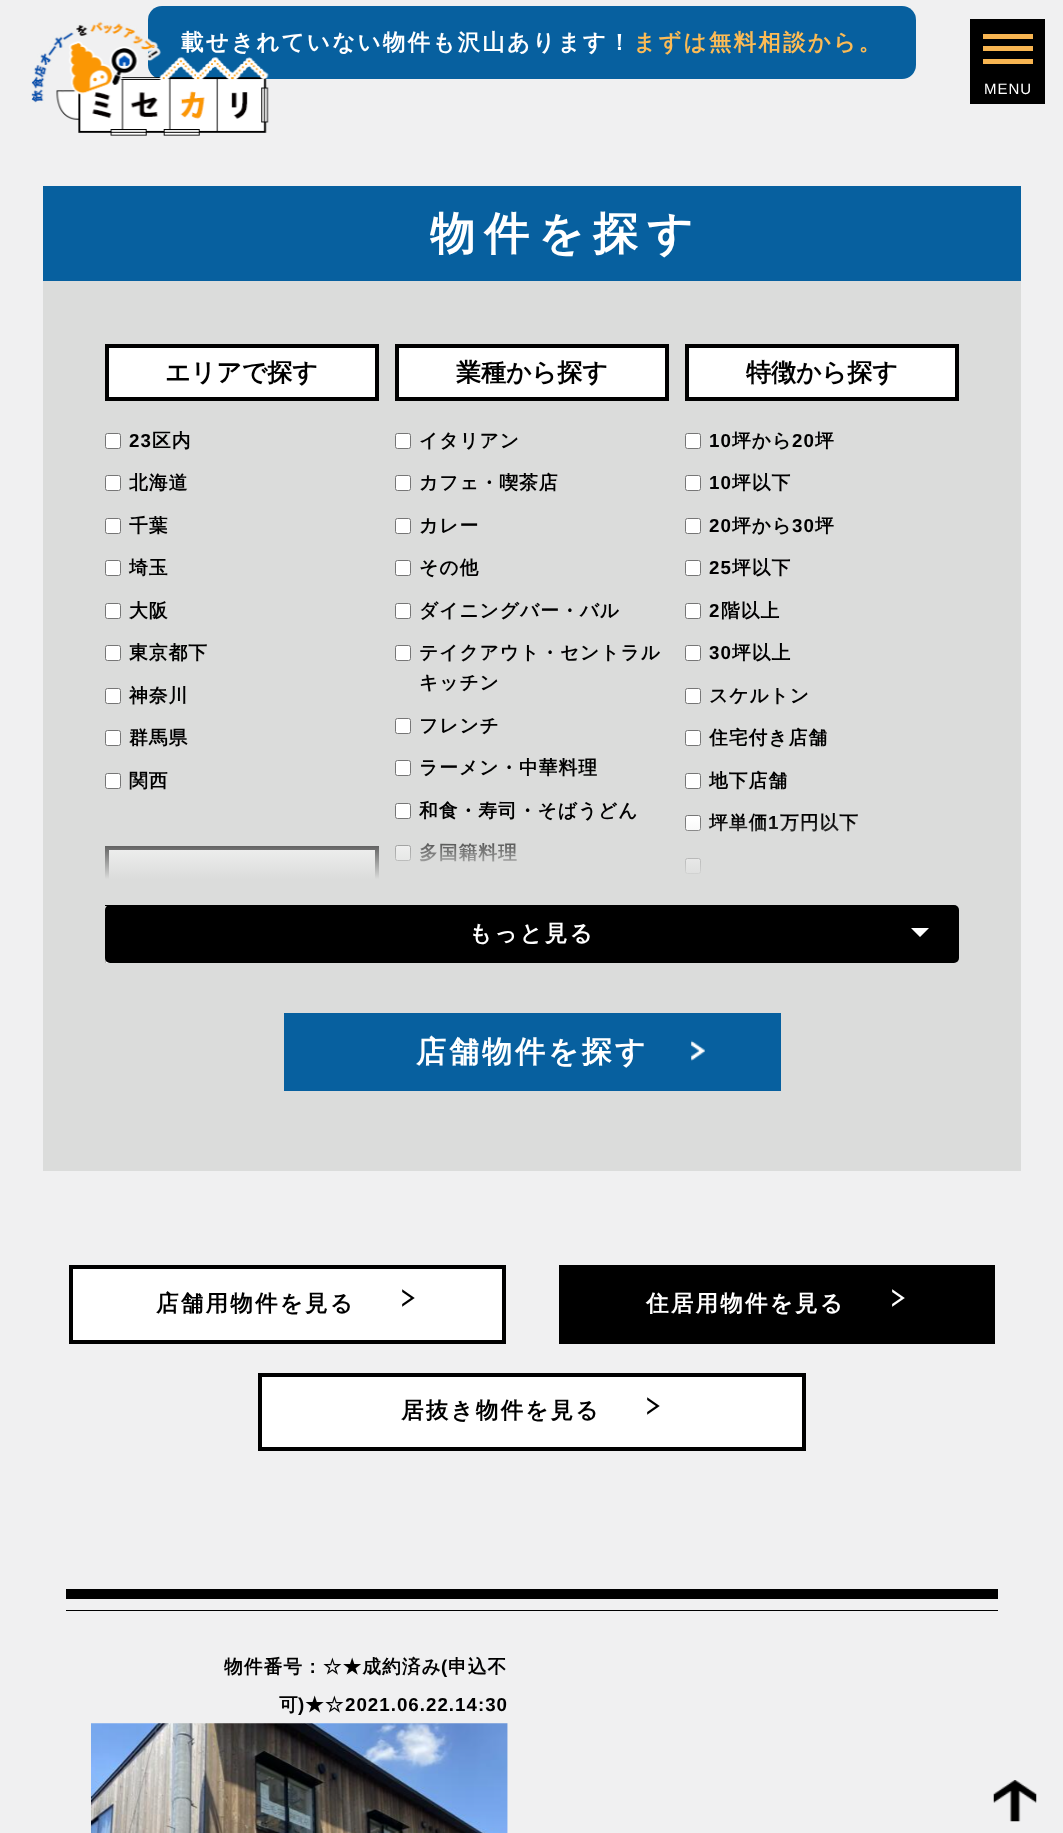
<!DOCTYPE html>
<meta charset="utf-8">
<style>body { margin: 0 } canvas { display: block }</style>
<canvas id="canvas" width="1063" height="1833"></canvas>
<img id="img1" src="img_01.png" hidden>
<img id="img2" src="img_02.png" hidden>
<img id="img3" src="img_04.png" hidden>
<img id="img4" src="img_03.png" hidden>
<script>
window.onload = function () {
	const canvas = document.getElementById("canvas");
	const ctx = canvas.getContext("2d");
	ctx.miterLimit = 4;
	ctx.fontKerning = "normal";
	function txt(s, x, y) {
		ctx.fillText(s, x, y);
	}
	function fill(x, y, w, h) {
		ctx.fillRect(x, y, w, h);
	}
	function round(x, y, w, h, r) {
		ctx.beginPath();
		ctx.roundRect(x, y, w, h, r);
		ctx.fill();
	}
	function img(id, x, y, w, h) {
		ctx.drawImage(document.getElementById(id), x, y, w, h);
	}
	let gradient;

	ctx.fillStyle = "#F0F0F1";
	fill(0, 0, 1063, 1833);
	ctx.fillStyle = "#07609F";
	round(148, 6, 768, 73, 14);
	ctx.fillStyle = "#DBDCDB";
	fill(43, 281, 978, 890);
	ctx.fillStyle = "#07609F";
	fill(43, 186, 978, 95);
	ctx.fillStyle = "#FFFFFF";
	ctx.beginPath();
	ctx.rect(107, 346, 270, 53);
	ctx.fill();
	ctx.strokeStyle = "#000000";
	ctx.lineWidth = 4;
	ctx.stroke();
	ctx.beginPath();
	ctx.roundRect(105.5, 433.5, 15, 15, 2);
	ctx.fill();
	ctx.strokeStyle = "#767676";
	ctx.lineWidth = 1;
	ctx.stroke();
	ctx.beginPath();
	ctx.roundRect(105.5, 475.5, 15, 15, 2);
	ctx.fill();
	ctx.stroke();
	ctx.beginPath();
	ctx.roundRect(105.5, 518.5, 15, 15, 2);
	ctx.fill();
	ctx.stroke();
	ctx.beginPath();
	ctx.roundRect(105.5, 560.5, 15, 15, 2);
	ctx.fill();
	ctx.stroke();
	ctx.beginPath();
	ctx.roundRect(105.5, 603.5, 15, 15, 2);
	ctx.fill();
	ctx.stroke();
	ctx.beginPath();
	ctx.roundRect(105.5, 645.5, 15, 15, 2);
	ctx.fill();
	ctx.stroke();
	ctx.beginPath();
	ctx.roundRect(105.5, 688.5, 15, 15, 2);
	ctx.fill();
	ctx.stroke();
	ctx.beginPath();
	ctx.roundRect(105.5, 730.5, 15, 15, 2);
	ctx.fill();
	ctx.stroke();
	ctx.beginPath();
	ctx.roundRect(105.5, 773.5, 15, 15, 2);
	ctx.fill();
	ctx.stroke();
	fill(109, 850, 266, 29);
	ctx.strokeStyle = "#000000";
	ctx.lineWidth = 4;
	ctx.strokeRect(107, 848, 270, 56);
	fill(106, 961, 4, 2);
	ctx.save();
	ctx.beginPath();
	ctx.rect(43, 281, 978, 682);
	ctx.clip();
	ctx.strokeStyle = "#B7B7B7";
	ctx.lineWidth = 1;
	ctx.strokeRect(105.5, 931.5, 273, 49);
	ctx.restore();
	ctx.beginPath();
	ctx.rect(397, 346, 270, 53);
	ctx.fill();
	ctx.stroke();
	ctx.beginPath();
	ctx.roundRect(395.5, 433.5, 15, 15, 2);
	ctx.fill();
	ctx.strokeStyle = "#767676";
	ctx.lineWidth = 1;
	ctx.stroke();
	ctx.beginPath();
	ctx.roundRect(395.5, 475.5, 15, 15, 2);
	ctx.fill();
	ctx.stroke();
	ctx.beginPath();
	ctx.roundRect(395.5, 518.5, 15, 15, 2);
	ctx.fill();
	ctx.stroke();
	ctx.beginPath();
	ctx.roundRect(395.5, 560.5, 15, 15, 2);
	ctx.fill();
	ctx.stroke();
	ctx.beginPath();
	ctx.roundRect(395.5, 603.5, 15, 15, 2);
	ctx.fill();
	ctx.stroke();
	ctx.beginPath();
	ctx.roundRect(395.5, 645.5, 15, 15, 2);
	ctx.fill();
	ctx.stroke();
	ctx.beginPath();
	ctx.roundRect(395.5, 718.5, 15, 15, 2);
	ctx.fill();
	ctx.stroke();
	ctx.beginPath();
	ctx.roundRect(395.5, 760.5, 15, 15, 2);
	ctx.fill();
	ctx.stroke();
	ctx.beginPath();
	ctx.roundRect(395.5, 803.5, 15, 15, 2);
	ctx.fill();
	ctx.stroke();
	ctx.beginPath();
	ctx.roundRect(395.5, 845.5, 15, 15, 2);
	ctx.fill();
	ctx.stroke();
	ctx.beginPath();
	ctx.rect(687, 346, 270, 53);
	ctx.fill();
	ctx.strokeStyle = "#000000";
	ctx.lineWidth = 4;
	ctx.stroke();
	ctx.beginPath();
	ctx.roundRect(685.5, 433.5, 15, 15, 2);
	ctx.fill();
	ctx.strokeStyle = "#767676";
	ctx.lineWidth = 1;
	ctx.stroke();
	ctx.beginPath();
	ctx.roundRect(685.5, 475.5, 15, 15, 2);
	ctx.fill();
	ctx.stroke();
	ctx.beginPath();
	ctx.roundRect(685.5, 518.5, 15, 15, 2);
	ctx.fill();
	ctx.stroke();
	ctx.beginPath();
	ctx.roundRect(685.5, 560.5, 15, 15, 2);
	ctx.fill();
	ctx.stroke();
	ctx.beginPath();
	ctx.roundRect(685.5, 603.5, 15, 15, 2);
	ctx.fill();
	ctx.stroke();
	ctx.beginPath();
	ctx.roundRect(685.5, 645.5, 15, 15, 2);
	ctx.fill();
	ctx.stroke();
	ctx.beginPath();
	ctx.roundRect(685.5, 688.5, 15, 15, 2);
	ctx.fill();
	ctx.stroke();
	ctx.beginPath();
	ctx.roundRect(685.5, 730.5, 15, 15, 2);
	ctx.fill();
	ctx.stroke();
	ctx.beginPath();
	ctx.roundRect(685.5, 773.5, 15, 15, 2);
	ctx.fill();
	ctx.stroke();
	ctx.beginPath();
	ctx.roundRect(685.5, 815.5, 15, 15, 2);
	ctx.fill();
	ctx.stroke();
	ctx.beginPath();
	ctx.roundRect(685.5, 858.5, 15, 15, 2);
	ctx.fill();
	ctx.stroke();
	ctx.fillStyle = "#000000";
	round(105, 905, 854, 58, 5);
	ctx.fillStyle = "#FFFFFF";
	ctx.beginPath();
	ctx.moveTo(929, 928);
	ctx.lineTo(920, 937);
	ctx.lineTo(920, 928);
	ctx.closePath();
	ctx.moveTo(920, 937);
	ctx.lineTo(911, 928);
	ctx.lineTo(920, 928);
	ctx.closePath();
	ctx.fill();
	ctx.fillStyle = "#07609F";
	fill(284, 1013, 497, 78);
	img("img1", 691, 1040, 14, 21);
	ctx.fillStyle = "#FFFFFF";
	ctx.beginPath();
	ctx.rect(71, 1267, 433, 75);
	ctx.fill();
	ctx.strokeStyle = "#000000";
	ctx.lineWidth = 4;
	ctx.stroke();
	ctx.fillStyle = "#000000";
	fill(559, 1265, 436, 79);
	ctx.fillStyle = "#FFFFFF";
	ctx.beginPath();
	ctx.rect(260, 1375, 544, 74);
	ctx.fill();
	ctx.stroke();
	ctx.fillStyle = "#000000";
	fill(66, 1589, 932, 10);
	fill(66, 1610, 932, 1);
	img("img2", 91, 1723, 417, 110);
	fill(970, 19, 75, 85);
	ctx.fillStyle = "#F8B551";
	fill(983, 46, 50, 5);
	fill(983, 34, 50, 5);
	fill(983, 59, 50, 5);
	img("img3", 993, 1780, 44, 42);
	ctx.letterSpacing = "2.25px";
	ctx.font = "bold 22.5px WenQuanYi Zen Hei";
	ctx.fillStyle = "#FFFFFF";
	txt("載せきれていない物件も沢山あります！", 181, 50);
	ctx.fillStyle = "#FCBB55";
	txt("まずは無料相談から。", 633, 50);
	ctx.letterSpacing = "9px";
	ctx.font = "bold 45px WenQuanYi Zen Hei";
	ctx.fillStyle = "#FFFFFF";
	txt("物件を探す", 430, 249);
	ctx.letterSpacing = "0px";
	ctx.font = "bold 25px WenQuanYi Zen Hei";
	ctx.fillStyle = "#000000";
	txt("エリアで探す", 165, 381);
	ctx.letterSpacing = "1px";
	ctx.font = "bold 18.75px Liberation Sans";
	txt("23", 129, 447);
	ctx.font = "bold 18.75px WenQuanYi Zen Hei";
	txt("区内", 152, 447);
	txt("北海道", 129, 489);
	txt("千葉", 129, 532);
	txt("埼玉", 129, 574);
	txt("大阪", 129, 617);
	txt("東京都下", 129, 659);
	txt("神奈川", 129, 702);
	txt("群馬県", 129, 744);
	txt("関西", 129, 787);
	ctx.letterSpacing = "0px";
	ctx.font = "bold 25px WenQuanYi Zen Hei";
	txt("業種から探す", 456, 381);
	ctx.letterSpacing = "1px";
	ctx.font = "bold 18.75px WenQuanYi Zen Hei";
	txt("イタリアン", 419, 447);
	txt("カフェ・喫茶店", 419, 489);
	txt("カレー", 419, 532);
	txt("その他", 419, 574);
	txt("ダイニングバー・バル", 419, 617);
	txt("テイクアウト・セントラル", 419, 659);
	txt("キッチン", 419, 689);
	txt("フレンチ", 419, 732);
	txt("ラーメン・中華料理", 419, 774);
	txt("和食・寿司・そばうどん", 419, 817);
	txt("多国籍料理", 419, 859);
	ctx.letterSpacing = "0px";
	ctx.font = "bold 25px WenQuanYi Zen Hei";
	txt("特徴から探す", 746, 381);
	ctx.letterSpacing = "1px";
	ctx.font = "bold 18.75px Liberation Sans";
	txt("10", 709, 447);
	ctx.font = "bold 18.75px WenQuanYi Zen Hei";
	txt("坪から", 732, 447);
	ctx.font = "bold 18.75px Liberation Sans";
	txt("20", 792, 447);
	ctx.font = "bold 18.75px WenQuanYi Zen Hei";
	txt("坪", 815, 447);
	ctx.font = "bold 18.75px Liberation Sans";
	txt("10", 709, 489);
	ctx.font = "bold 18.75px WenQuanYi Zen Hei";
	txt("坪以下", 732, 489);
	ctx.font = "bold 18.75px Liberation Sans";
	txt("20", 709, 532);
	ctx.font = "bold 18.75px WenQuanYi Zen Hei";
	txt("坪から", 732, 532);
	ctx.font = "bold 18.75px Liberation Sans";
	txt("30", 792, 532);
	ctx.font = "bold 18.75px WenQuanYi Zen Hei";
	txt("坪", 815, 532);
	ctx.font = "bold 18.75px Liberation Sans";
	txt("25", 709, 574);
	ctx.font = "bold 18.75px WenQuanYi Zen Hei";
	txt("坪以下", 732, 574);
	ctx.font = "bold 18.75px Liberation Sans";
	txt("2", 709, 617);
	ctx.font = "bold 18.75px WenQuanYi Zen Hei";
	txt("階以上", 721, 617);
	ctx.font = "bold 18.75px Liberation Sans";
	txt("30", 709, 659);
	ctx.font = "bold 18.75px WenQuanYi Zen Hei";
	txt("坪以上", 732, 659);
	txt("スケルトン", 709, 702);
	txt("住宅付き店舗", 709, 744);
	txt("地下店舗", 709, 787);
	txt("坪単価", 709, 829);
	ctx.font = "bold 18.75px Liberation Sans";
	txt("1", 768, 829);
	ctx.font = "bold 18.75px WenQuanYi Zen Hei";
	txt("万円以下", 780, 829);
	gradient = ctx.createLinearGradient(532, 819, 532, 905);
	gradient.addColorStop(0, "rgba(219, 220, 219, 0)");
	gradient.addColorStop(0.7, "#DBDCDB");
	ctx.fillStyle = gradient;
	fill(105, 820, 750, 85);
	ctx.letterSpacing = "2.25px";
	ctx.font = "bold 22.5px WenQuanYi Zen Hei";
	ctx.fillStyle = "#FFFFFF";
	txt("もっと見る", 469, 941);
	ctx.letterSpacing = "3px";
	ctx.font = "bold 30px WenQuanYi Zen Hei";
	txt("店舗物件を探す", 416, 1062);
	ctx.letterSpacing = "2.25px";
	ctx.font = "bold 22.5px WenQuanYi Zen Hei";
	ctx.fillStyle = "#000000";
	txt("店舗用物件を見る", 156, 1311);
	ctx.font = "bold 29px BIZ UDGothic";
	txt(">", 401, 1309);
	ctx.font = "bold 22.5px WenQuanYi Zen Hei";
	ctx.fillStyle = "#FFFFFF";
	txt("住居用物件を見る", 646, 1311);
	ctx.font = "bold 29px BIZ UDGothic";
	txt(">", 891, 1309);
	ctx.font = "bold 22.5px WenQuanYi Zen Hei";
	ctx.fillStyle = "#000000";
	txt("居抜き物件を見る", 401, 1418);
	ctx.font = "bold 29px BIZ UDGothic";
	txt(">", 646, 1417);
	ctx.letterSpacing = "1px";
	ctx.font = "bold 18.75px WenQuanYi Zen Hei";
	txt("物件番号：☆★成約済み", 224, 1673);
	ctx.font = "bold 18.75px Liberation Sans";
	txt("(", 441, 1673);
	ctx.font = "bold 18.75px WenQuanYi Zen Hei";
	txt("申込不", 448, 1673);
	txt("可", 279, 1711);
	ctx.font = "bold 18.75px Liberation Sans";
	txt(")", 298, 1711);
	ctx.font = "bold 18.75px WenQuanYi Zen Hei";
	txt("★☆", 305, 1711);
	ctx.font = "bold 18.75px Liberation Sans";
	txt("2021.06.22.14:30", 345, 1711);
	img("img4", 31, 21, 238, 115);
	ctx.font = "15px Liberation Sans";
	ctx.fillStyle = "#FFFFFF";
	txt("MENU", 984, 94);
};
</script>
